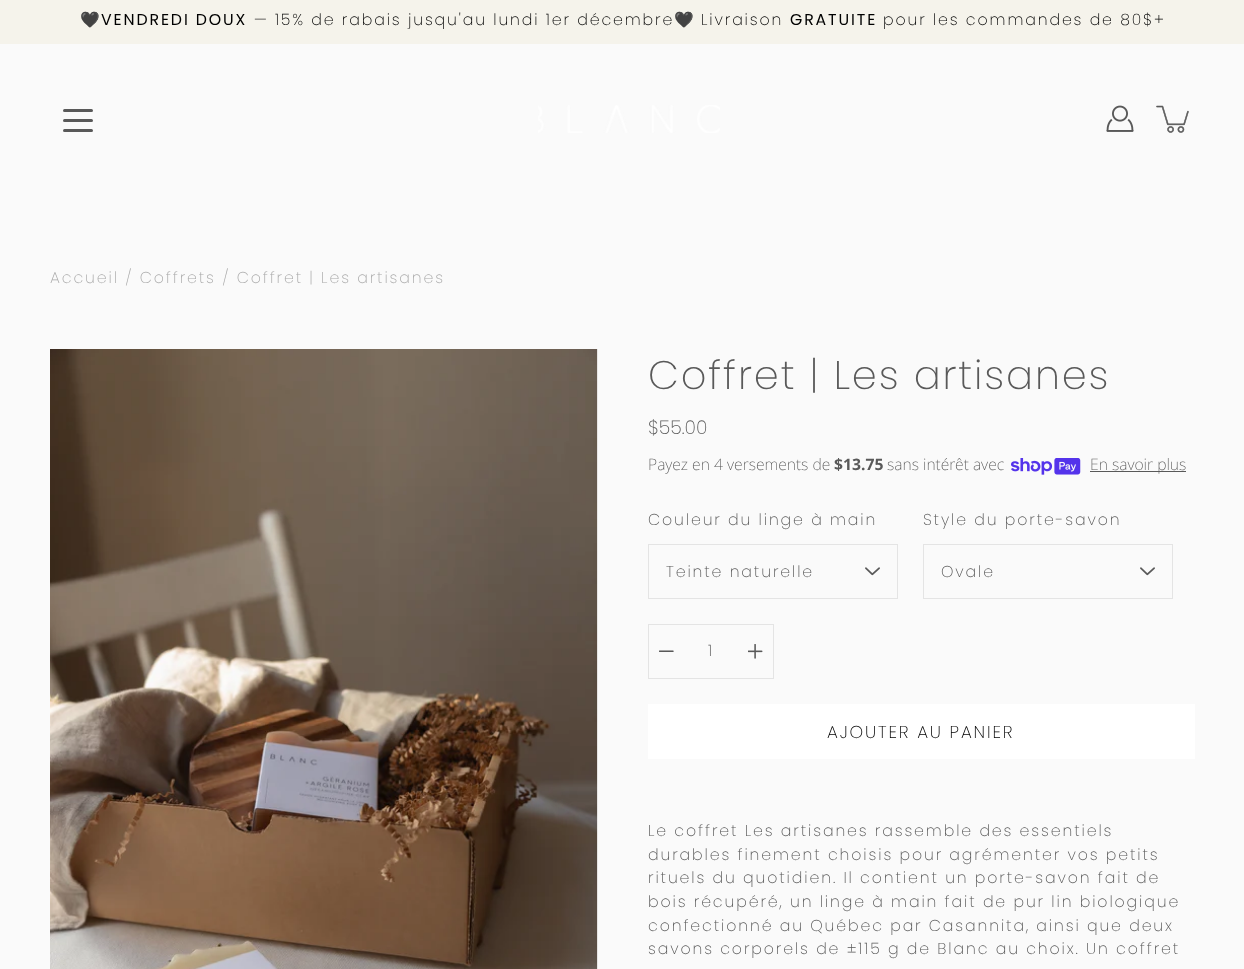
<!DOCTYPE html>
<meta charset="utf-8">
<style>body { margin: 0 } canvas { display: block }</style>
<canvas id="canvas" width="1244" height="969"></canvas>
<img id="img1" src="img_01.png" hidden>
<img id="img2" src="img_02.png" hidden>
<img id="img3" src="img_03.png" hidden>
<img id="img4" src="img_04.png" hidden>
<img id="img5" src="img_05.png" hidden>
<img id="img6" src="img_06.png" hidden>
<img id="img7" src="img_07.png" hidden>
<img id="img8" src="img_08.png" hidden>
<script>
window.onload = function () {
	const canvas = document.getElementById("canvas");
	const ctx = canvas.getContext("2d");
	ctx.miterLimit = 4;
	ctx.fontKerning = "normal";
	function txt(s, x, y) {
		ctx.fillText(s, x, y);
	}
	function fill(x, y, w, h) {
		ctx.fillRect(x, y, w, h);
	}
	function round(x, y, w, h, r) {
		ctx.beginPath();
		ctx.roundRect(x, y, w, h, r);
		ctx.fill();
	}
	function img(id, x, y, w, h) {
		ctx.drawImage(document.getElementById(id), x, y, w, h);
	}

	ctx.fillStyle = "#FAFAFA";
	fill(0, 0, 1244, 969);
	ctx.fillStyle = "#F5F3EB";
	fill(0, 0, 1244, 44);
	ctx.fillStyle = "#595959";
	round(63, 119, 30, 3, 1.5);
	round(63, 109, 30, 3, 1.5);
	round(63, 129, 30, 3, 1.5);
	img("img1", 1106, 105, 28, 27);
	img("img2", 1156, 105, 33, 28);
	img("img3", 538, 105, 182, 28);
	img("img4", 50, 349, 548, 620);
	img("img5", 1011, 458, 70, 17);
	fill(1090, 471, 96, 1);
	ctx.strokeStyle = "#E4E4E4";
	ctx.strokeRect(648.5, 544.5, 249, 54);
	img("img6", 865, 567, 15, 9);
	ctx.strokeRect(923.5, 544.5, 249, 54);
	img("img6", 1140, 567, 15, 9);
	ctx.strokeRect(648.5, 624.5, 125, 54);
	img("img7", 659, 650, 15, 2);
	img("img8", 748, 644, 15, 15);
	ctx.fillStyle = "#FFFFFF";
	fill(648, 704, 547, 55);
	ctx.letterSpacing = "1.88px";
	ctx.font = "15.75px Noto Color Emoji";
	ctx.fillStyle = "#000000";
	txt("🖤", 80, 25);
	ctx.font = "15.75px Poppins";
	txt("VENDREDI DOUX", 101, 25);
	ctx.font = "300 15.75px Poppins";
	txt("— 15% de rabais jusqu'au lundi 1er décembre", 254, 25);
	ctx.font = "15.75px Noto Color Emoji";
	txt("🖤", 674, 25);
	ctx.font = "300 15.75px Poppins";
	txt("Livraison", 701, 25);
	ctx.font = "15.75px Poppins";
	txt("GRATUITE", 790, 25);
	ctx.font = "300 15.75px Poppins";
	txt("pour les commandes de 80$+", 883, 25);
	ctx.fillStyle = "#AAAAAA";
	txt("Accueil / Coffrets / Coffret | Les artisanes", 50, 283);
	ctx.font = "300 40px Poppins";
	ctx.fillStyle = "#595959";
	txt("Coffret | Les artisanes", 648, 389);
	ctx.letterSpacing = "0px";
	ctx.font = "300 19px Poppins";
	txt("$55.00", 648, 434);
	ctx.font = "200 15.75px Noto Sans";
	txt("Payez en 4 versements de", 648, 470);
	ctx.font = "bold 15.75px Noto Sans";
	txt("$13.75", 834, 470);
	ctx.font = "200 15.75px Noto Sans";
	txt("sans intérêt avec", 887, 470);
	txt("En savoir plus", 1090, 470);
	ctx.letterSpacing = "1.88px";
	ctx.font = "300 15.75px Poppins";
	txt("Couleur du linge à main", 648, 525);
	txt("Teinte naturelle", 666, 577);
	txt("Style du porte-savon", 923, 525);
	txt("Ovale", 941, 577);
	txt("1", 708, 656);
	ctx.font = "300 17.25px Poppins";
	ctx.fillStyle = "#000000";
	txt("AJOUTER AU PANIER", 827, 738);
	ctx.font = "300 15.75px Poppins";
	ctx.fillStyle = "#595959";
	txt("Le coffret Les artisanes rassemble des essentiels", 648, 836);
	txt("durables finement choisis pour agrémenter vos petits", 648, 860);
	txt("rituels du quotidien. Il contient un porte-savon fait de", 648, 883);
	txt("bois récupéré, un linge à main fait de pur lin biologique", 648, 907);
	txt("confectionné au Québec par Casannita, ainsi que deux", 648, 931);
	txt("savons corporels de ±115 g de Blanc au choix. Un coffret", 648, 954);
};
</script>
